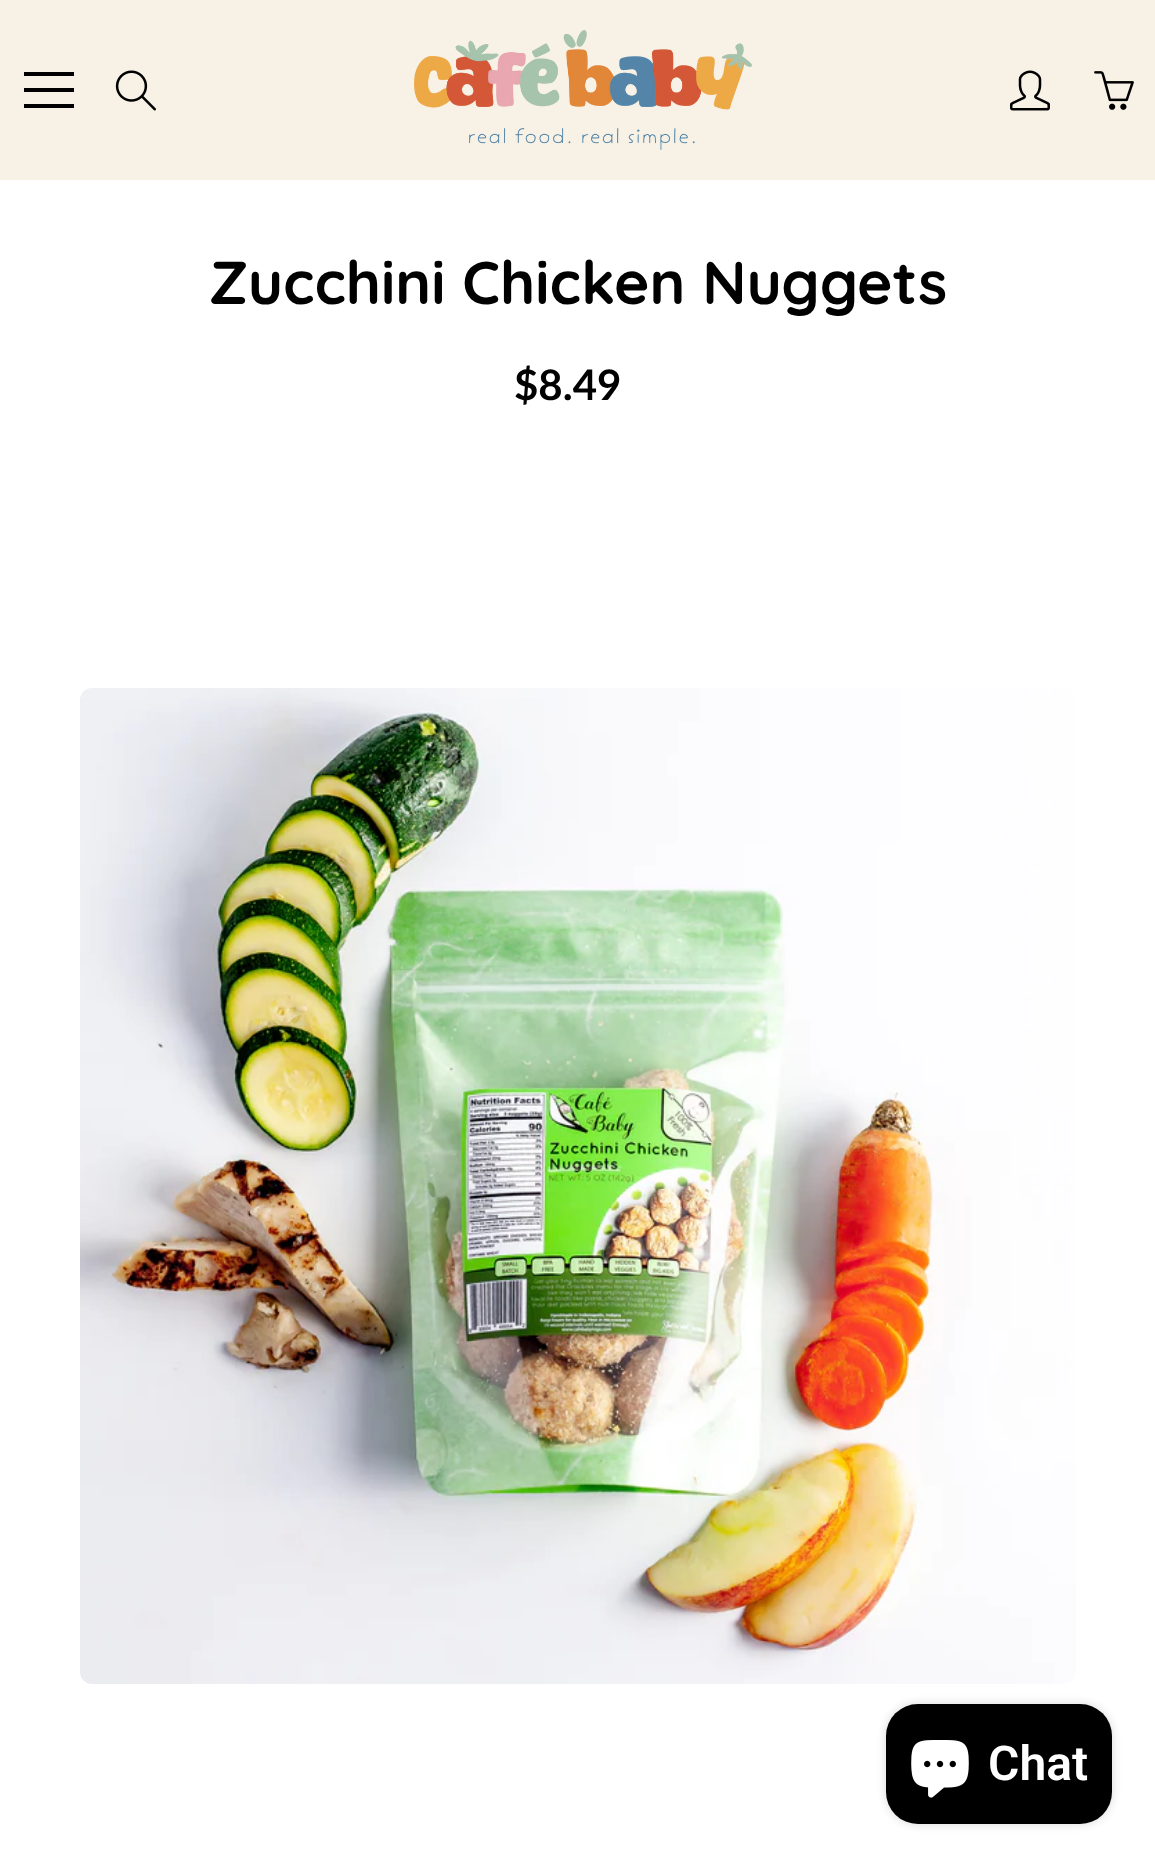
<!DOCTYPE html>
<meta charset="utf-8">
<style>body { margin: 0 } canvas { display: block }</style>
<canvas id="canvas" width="1155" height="1866"></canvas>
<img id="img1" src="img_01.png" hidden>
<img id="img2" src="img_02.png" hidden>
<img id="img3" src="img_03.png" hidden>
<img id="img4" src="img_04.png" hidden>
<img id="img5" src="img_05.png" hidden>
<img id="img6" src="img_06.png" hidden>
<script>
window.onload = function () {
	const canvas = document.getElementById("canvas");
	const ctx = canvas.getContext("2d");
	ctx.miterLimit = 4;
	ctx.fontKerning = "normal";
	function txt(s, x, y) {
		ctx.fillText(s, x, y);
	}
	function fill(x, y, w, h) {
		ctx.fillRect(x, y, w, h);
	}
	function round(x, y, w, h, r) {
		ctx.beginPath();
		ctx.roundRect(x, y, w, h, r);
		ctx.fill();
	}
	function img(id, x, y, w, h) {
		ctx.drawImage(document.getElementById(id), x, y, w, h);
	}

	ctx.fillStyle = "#FFFFFF";
	fill(0, 0, 1155, 1866);
	ctx.fillStyle = "#F8F2E6";
	fill(0, 0, 1155, 180);
	ctx.fillStyle = "#000000";
	fill(24, 88, 50, 4);
	fill(24, 72, 50, 4);
	fill(24, 104, 50, 4);
	img("img1", 115, 70, 41, 41);
	img("img2", 414, 30, 338, 120);
	img("img3", 1010, 70, 40, 41);
	img("img4", 1094, 71, 40, 39);
	img("img5", 80, 688, 996, 996);
	ctx.fillStyle = "rgba(0, 0, 0, 0.15)";
	ctx.filter = "blur(5px)";
	ctx.beginPath();
	ctx.roundRect(886, 1704, 226, 120, 32);
	ctx.fill();
	ctx.filter = "none";
	ctx.fillStyle = "#000000";
	round(886, 1704, 226, 120, 32);
	img("img6", 911, 1740, 58, 58);
	ctx.font = "bold 60.25px Quicksand";
	txt("Zucchini Chicken Nuggets", 209, 304);
	ctx.font = "bold 42px Lato";
	txt("$8.49", 514, 400);
	ctx.font = "600 48px Roboto";
	ctx.fillStyle = "#FFFFFF";
	txt("Chat", 988, 1780);
};
</script>
